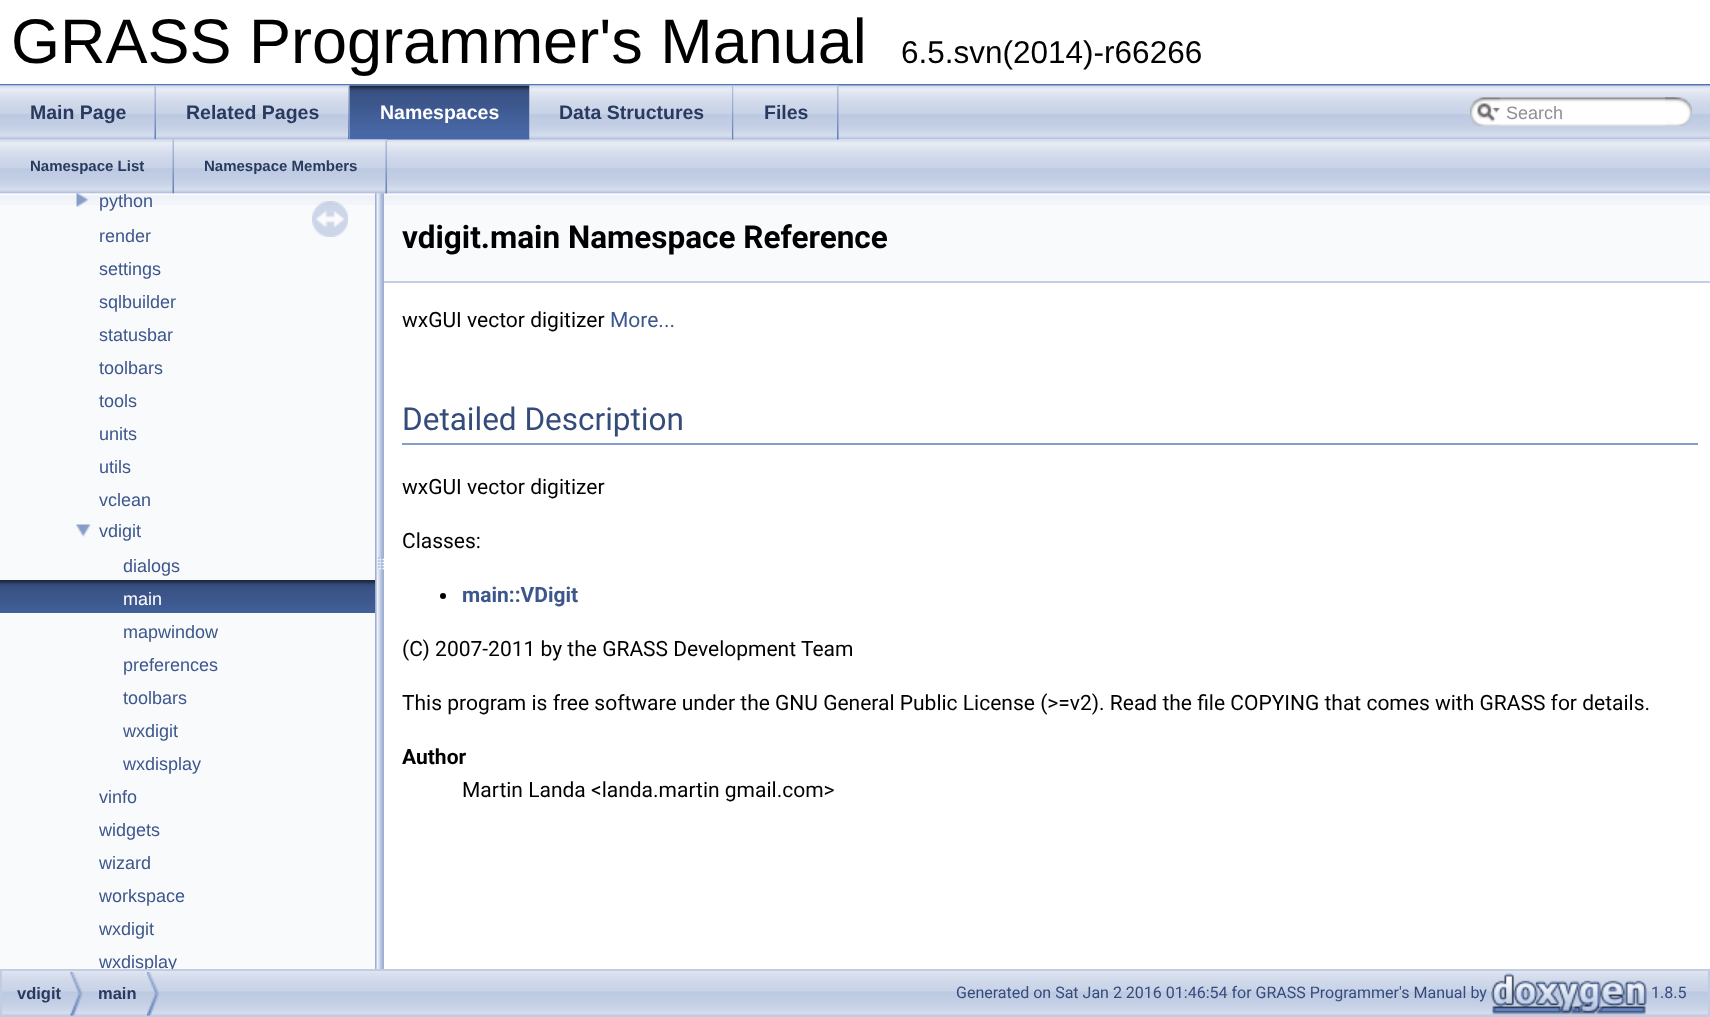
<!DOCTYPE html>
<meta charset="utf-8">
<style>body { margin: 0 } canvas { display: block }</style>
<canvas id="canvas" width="1710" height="1017"></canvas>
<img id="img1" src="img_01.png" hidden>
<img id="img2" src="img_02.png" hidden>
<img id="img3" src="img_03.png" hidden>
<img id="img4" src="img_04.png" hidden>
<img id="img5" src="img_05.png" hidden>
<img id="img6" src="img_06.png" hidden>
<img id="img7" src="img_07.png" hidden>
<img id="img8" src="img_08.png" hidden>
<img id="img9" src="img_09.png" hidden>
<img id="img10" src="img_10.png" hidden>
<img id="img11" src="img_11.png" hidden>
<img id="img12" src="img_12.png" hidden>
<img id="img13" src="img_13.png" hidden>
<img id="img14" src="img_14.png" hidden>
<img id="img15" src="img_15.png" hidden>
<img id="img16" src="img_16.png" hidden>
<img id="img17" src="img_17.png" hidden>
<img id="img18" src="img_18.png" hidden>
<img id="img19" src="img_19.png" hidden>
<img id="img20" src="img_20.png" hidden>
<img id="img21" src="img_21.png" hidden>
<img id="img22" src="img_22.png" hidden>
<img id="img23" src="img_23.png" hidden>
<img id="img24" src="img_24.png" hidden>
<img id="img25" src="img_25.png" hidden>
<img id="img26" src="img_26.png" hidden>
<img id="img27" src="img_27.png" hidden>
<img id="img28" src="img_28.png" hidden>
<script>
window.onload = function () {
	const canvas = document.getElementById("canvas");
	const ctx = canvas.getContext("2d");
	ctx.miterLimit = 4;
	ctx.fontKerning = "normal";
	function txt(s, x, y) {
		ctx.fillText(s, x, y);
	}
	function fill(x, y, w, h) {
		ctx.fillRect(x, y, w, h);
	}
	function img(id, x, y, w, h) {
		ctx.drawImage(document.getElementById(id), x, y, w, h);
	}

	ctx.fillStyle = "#FFFFFF";
	fill(0, 0, 1710, 1017);
	ctx.fillStyle = "#5373B4";
	fill(0, 84, 1710, 2);
	img("img1", 0, 85, 1710, 55);
	img("img2", 0, 85, 156, 55);
	img("img3", 154, 86, 2, 54);
	img("img4", 156, 85, 194, 55);
	img("img5", 348, 86, 2, 54);
	img("img6", 349, 85, 181, 55);
	img("img7", 349, 85, 181, 55);
	img("img8", 529, 85, 205, 55);
	img("img5", 732, 86, 2, 54);
	img("img9", 733, 85, 106, 55);
	img("img5", 837, 86, 2, 54);
	img("img10", 1470, 97, 30, 29);
	img("img11", 1477, 103, 23, 19);
	img("img12", 1500, 97, 176, 29);
	img("img13", 1665, 97, 27, 29);
	img("img14", 0, 140, 1710, 54);
	img("img15", 0, 139, 174, 55);
	img("img16", 172, 139, 2, 55);
	img("img17", 174, 139, 213, 55);
	img("img3", 385, 140, 2, 54);
	ctx.fillStyle = "#F9FAFC";
	fill(0, 205, 375, 764);
	img("img18", 0, 193, 375, 12);
	img("img19", 76, 193, 13, 14);
	img("img20", 76, 524, 15, 13);
	img("img21", 0, 580, 375, 33);
	img("img22", 312, 201, 36, 36);
	img("img23", 375, 193, 9, 776);
	fill(384, 205, 1326, 76);
	img("img24", 384, 193, 1326, 12);
	ctx.fillStyle = "#C4CFE5";
	fill(384, 281, 1326, 2);
	ctx.fillStyle = "#879ECB";
	fill(402, 443, 1296, 2);
	ctx.fillStyle = "#000000";
	ctx.beginPath();
	ctx.arc(443, 596, 3, 0, Math.PI * 2);
	ctx.fill();
	img("img25", 2, 971, 1706, 44);
	ctx.strokeStyle = "#C2CDE4";
	ctx.lineWidth = 2;
	ctx.strokeRect(1, 970, 1708, 46);
	img("img26", 70, 972, 13, 44);
	img("img27", 147, 972, 12, 44);
	img("img28", 1491, 973, 156, 42);
	ctx.font = "63px Liberation Sans";
	txt("GRASS Programmer's Manual", 11, 63);
	ctx.font = "31.5px Liberation Sans";
	txt("6.5.svn(2014)-r66266", 901, 63);
	ctx.font = "bold 19.5px Liberation Sans";
	ctx.fillStyle = "#283A5D";
	txt("Main Page", 30, 119);
	txt("Related Pages", 186, 119);
	ctx.fillStyle = "#FFFFFF";
	txt("Namespaces", 380, 119);
	ctx.fillStyle = "#283A5D";
	txt("Data Structures", 559, 119);
	txt("Files", 764, 119);
	ctx.font = "18px Liberation Sans";
	ctx.fillStyle = "#909090";
	txt("Search", 1506, 119);
	ctx.font = "bold 15px Liberation Sans";
	ctx.fillStyle = "#283A5D";
	txt("Namespace List", 30, 171);
	txt("Namespace Members", 204, 171);
	ctx.font = "18px Liberation Sans";
	ctx.fillStyle = "#3D578C";
	txt("python", 99, 207);
	txt("render", 99, 242);
	txt("settings", 99, 275);
	txt("sqlbuilder", 99, 308);
	txt("statusbar", 99, 341);
	txt("toolbars", 99, 374);
	txt("tools", 99, 407);
	txt("units", 99, 440);
	txt("utils", 99, 473);
	txt("vclean", 99, 506);
	txt("vdigit", 99, 537);
	txt("dialogs", 123, 572);
	ctx.fillStyle = "#FFFFFF";
	txt("main", 123, 605);
	ctx.fillStyle = "#3D578C";
	txt("mapwindow", 123, 638);
	txt("preferences", 123, 671);
	txt("toolbars", 123, 704);
	txt("wxdigit", 123, 737);
	txt("wxdisplay", 123, 770);
	txt("vinfo", 99, 803);
	txt("widgets", 99, 836);
	txt("wizard", 99, 869);
	txt("workspace", 99, 902);
	txt("wxdigit", 99, 935);
	ctx.save();
	ctx.beginPath();
	ctx.rect(0, 194, 375, 775);
	ctx.clip();
	txt("wxdisplay", 99, 968);
	ctx.restore();
	ctx.font = "bold 31.5px Roboto";
	ctx.fillStyle = "#000000";
	txt("vdigit.main Namespace Reference", 402, 248);
	ctx.font = "21px Roboto";
	txt("wxGUI vector digitizer", 402, 327);
	ctx.fillStyle = "#3D578C";
	txt("More...", 610, 327);
	ctx.font = "31.5px Roboto";
	ctx.fillStyle = "#354C7B";
	txt("Detailed Description", 402, 430);
	ctx.font = "21px Roboto";
	ctx.fillStyle = "#000000";
	txt("wxGUI vector digitizer", 402, 494);
	txt("Classes:", 402, 548);
	ctx.font = "bold 21px Roboto";
	ctx.fillStyle = "#3D578C";
	txt("main::VDigit", 462, 602);
	ctx.font = "21px Roboto";
	ctx.fillStyle = "#000000";
	txt("(C) 2007-2011 by the GRASS Development Team", 402, 656);
	txt("This program is free software under the GNU General Public License (>=v2). Read the file COPYING that comes with GRASS for details.", 402, 710);
	ctx.font = "bold 21px Roboto";
	txt("Author", 402, 764);
	ctx.font = "21px Roboto";
	txt("Martin Landa <landa.martin gmail.com>", 462, 797);
	ctx.font = "bold 16.5px Liberation Sans";
	ctx.fillStyle = "#283A5D";
	txt("vdigit", 17, 999);
	txt("main", 98, 999);
	ctx.font = "16px Roboto";
	ctx.fillStyle = "#354C7B";
	txt("Generated on Sat Jan 2 2016 01:46:54 for GRASS Programmer's Manual by", 956, 998);
	txt("1.8.5", 1651, 998);
};
</script>
